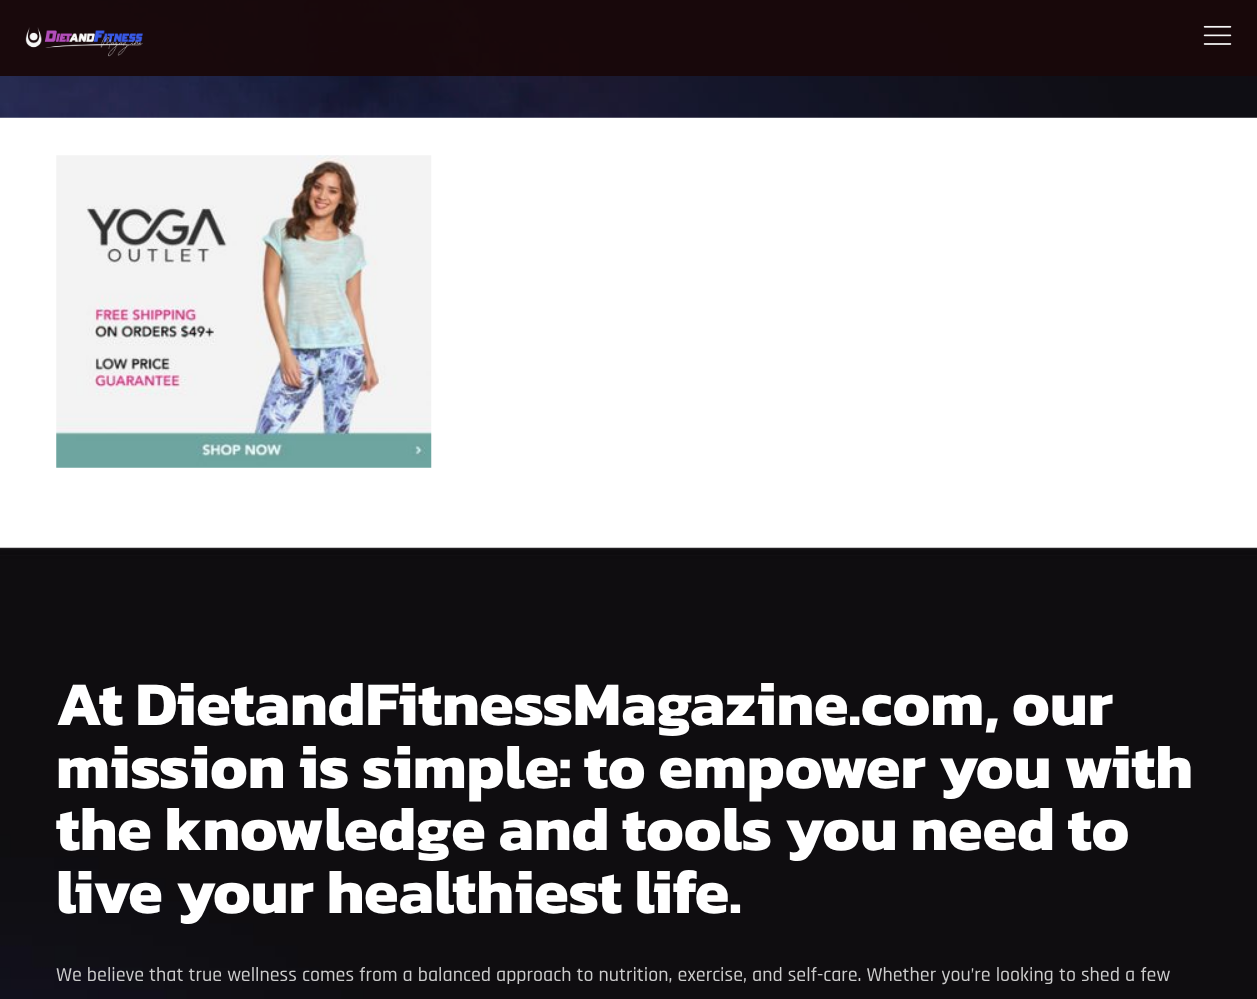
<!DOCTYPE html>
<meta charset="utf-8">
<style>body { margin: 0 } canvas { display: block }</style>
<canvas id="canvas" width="1257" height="999"></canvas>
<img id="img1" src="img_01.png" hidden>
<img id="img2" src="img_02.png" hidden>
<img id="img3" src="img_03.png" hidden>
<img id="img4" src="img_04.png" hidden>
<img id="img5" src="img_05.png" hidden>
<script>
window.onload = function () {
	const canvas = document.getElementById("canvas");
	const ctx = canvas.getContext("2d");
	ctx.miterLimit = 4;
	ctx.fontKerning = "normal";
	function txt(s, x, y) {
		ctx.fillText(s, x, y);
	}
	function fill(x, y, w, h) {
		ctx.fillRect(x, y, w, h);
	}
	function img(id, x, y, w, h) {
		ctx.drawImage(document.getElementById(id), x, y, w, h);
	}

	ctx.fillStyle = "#FFFFFF";
	fill(0, 0, 1257, 999);
	img("img1", 0, 0, 1257, 118);
	ctx.fillStyle = "rgba(25, 8, 10, 0.97)";
	fill(0, 0, 1257, 76);
	img("img2", 25, 27, 118, 30);
	img("img3", 1203, 25, 29, 20);
	img("img4", 56, 155, 376, 313);
	img("img5", 0, 547, 1257, 452);
	ctx.font = "bold 62.5px Kanit";
	ctx.fillStyle = "#FFFFFF";
	txt("At DietandFitnessMagazine.com, our", 56, 725);
	txt("mission is simple: to empower you with", 56, 788);
	txt("the knowledge and tools you need to", 56, 850);
	txt("live your healthiest life.", 56, 913);
	ctx.font = "500 20px Rajdhani";
	ctx.fillStyle = "#CCCCCC";
	txt("We believe that true wellness comes from a balanced approach to nutrition, exercise, and self-care. Whether you’re looking to shed a few", 56, 981);
};
</script>
